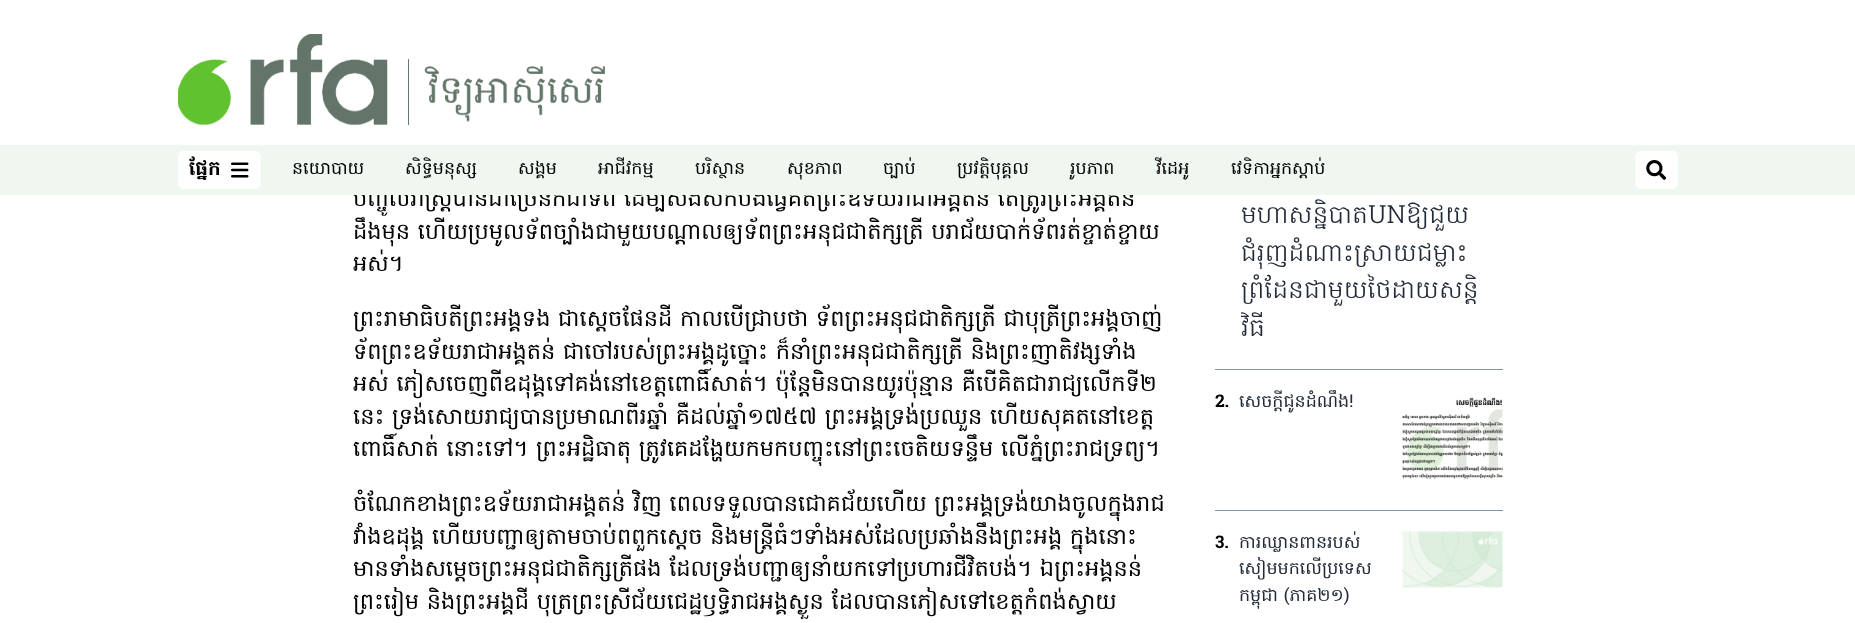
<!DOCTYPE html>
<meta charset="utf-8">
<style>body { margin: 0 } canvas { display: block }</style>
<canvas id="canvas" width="1855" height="623"></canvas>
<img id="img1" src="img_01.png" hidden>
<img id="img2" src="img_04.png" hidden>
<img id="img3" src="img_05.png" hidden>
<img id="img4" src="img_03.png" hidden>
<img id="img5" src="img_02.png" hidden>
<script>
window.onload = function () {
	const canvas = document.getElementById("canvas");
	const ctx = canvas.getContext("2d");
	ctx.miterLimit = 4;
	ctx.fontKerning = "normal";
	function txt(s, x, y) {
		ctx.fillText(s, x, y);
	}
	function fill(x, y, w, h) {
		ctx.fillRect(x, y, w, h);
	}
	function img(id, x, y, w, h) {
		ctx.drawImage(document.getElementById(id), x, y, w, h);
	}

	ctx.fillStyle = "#FFFFFF";
	fill(0, 0, 1855, 623);
	img("img1", 178, 34, 427, 91);
	ctx.fillStyle = "#8593AA";
	fill(1215, 369, 288, 1);
	img("img2", 1402, 397, 101, 83);
	fill(1215, 510, 288, 1);
	img("img3", 1402, 531, 101, 57);
	ctx.font = "22.5px Hanuman";
	ctx.fillStyle = "#000000";
	txt("បញ្ចូលរាស្ត្របានជាច្រើនកជាទ័ព ដើម្បីសងសឹកប៉ងធ្វើគត់ព្រះឧទ័យរាជាអង្គតន់ តែត្រូវព្រះអង្គតន់", 353, 206);
	ctx.fillStyle = "#F0F6F0";
	fill(0, 145, 1855, 50);
	ctx.fillStyle = "#FFFFFF";
	ctx.beginPath();
	ctx.roundRect(1635.5, 151.5, 42, 37, 4.5);
	ctx.fill();
	ctx.strokeStyle = "#FFFFFF";
	ctx.stroke();
	img("img4", 1646, 160, 20, 20);
	ctx.font = "17.5px Hanuman";
	ctx.fillStyle = "#000000";
	txt("វេទិកាអ្នកស្ដាប់", 1231, 174);
	txt("វីដេអូ", 1156, 174);
	txt("រូបភាព", 1070, 174);
	txt("ប្រវត្តិបុគ្គល", 957, 174);
	txt("ច្បាប់", 883, 174);
	txt("សុខភាព", 787, 174);
	txt("បរិស្ថាន", 695, 174);
	txt("អាជីវកម្ម", 598, 174);
	txt("សង្គម", 518, 174);
	txt("សិទ្ធិមនុស្ស", 405, 174);
	txt("នយោបាយ", 292, 174);
	ctx.fillStyle = "#FFFFFF";
	ctx.beginPath();
	ctx.roundRect(178.5, 151.5, 82, 37, 4.5);
	ctx.fill();
	ctx.stroke();
	img("img5", 231, 162, 18, 16);
	ctx.font = "bold 20px Hanuman";
	ctx.fillStyle = "#000000";
	txt("ផ្នែក", 189, 175);
	ctx.save();
	ctx.beginPath();
	ctx.rect(353, 0, 862, 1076);
	ctx.clip();
	ctx.font = "22.5px Hanuman";
	txt("ដឹងមុន ហើយប្រមូលទ័ពច្បាំងជាមួយបណ្ដាលឲ្យទ័ពព្រះអនុជជាតិក្សត្រី បរាជ័យបាក់ទ័ពរត់ខ្ចាត់ខ្ចាយ", 353, 239);
	ctx.restore();
	ctx.font = "22.5px Hanuman";
	txt("អស់។", 353, 271);
	txt("ព្រះរាមាធិបតីព្រះអង្គទង ជាស្ដេចផែនដី កាលបើជ្រាបថា ទ័ពព្រះអនុជជាតិក្សត្រី ជាបុត្រីព្រះអង្គចាញ់", 353, 326);
	ctx.save();
	ctx.beginPath();
	ctx.rect(353, 0, 862, 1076);
	ctx.clip();
	txt("ទ័ពព្រះឧទ័យរាជាអង្គតន់ ជាចៅរបស់ព្រះអង្គដូច្នោះ ក៏នាំព្រះអនុជជាតិក្សត្រី និងព្រះញាតិវង្សទាំង", 353, 359);
	ctx.restore();
	txt("អស់ ភៀសចេញពីឧដុង្គទៅគង់នៅខេត្តពោធិ៍សាត់។ ប៉ុន្តែមិនបានយូរប៉ុន្មាន គឺបើគិតជារាជ្យលើកទី២", 353, 391);
	txt("នេះ ទ្រង់សោយរាជ្យបានប្រមាណពីរឆ្នាំ គឺដល់ឆ្នាំ១៧៥៧ ព្រះអង្គទ្រង់ប្រឈួន ហើយសុគតនៅខេត្ត", 353, 424);
	txt("ពោធិ៍សាត់ នោះទៅ។ ព្រះអដ្ឋិធាតុ ត្រូវគេដង្ហែយកមកបញ្ចុះនៅព្រះចេតិយទន្ទឹម លើភ្នំព្រះរាជទ្រព្យ។", 353, 456);
	ctx.save();
	ctx.beginPath();
	ctx.rect(353, 0, 862, 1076);
	ctx.clip();
	txt("ចំណែកខាងព្រះឧទ័យរាជាអង្គតន់ វិញ ពេលទទួលបានជោគជ័យហើយ ព្រះអង្គទ្រង់យាងចូលក្នុងរាជ", 353, 511);
	txt("វាំងឧដុង្គ ហើយបញ្ជាឲ្យតាមចាប់ពពួកស្ដេច និងមន្ត្រីធំៗទាំងអស់ដែលប្រឆាំងនឹងព្រះអង្គ ក្នុងនោះ", 353, 544);
	ctx.restore();
	txt("មានទាំងសម្ដេចព្រះអនុជជាតិក្សត្រីផង ដែលទ្រង់បញ្ជាឲ្យនាំយកទៅប្រហារជីវិតបង់។ ឯព្រះអង្គនន់", 353, 576);
	txt("ព្រះរៀម និងព្រះអង្គជី បុត្រព្រះស្រីជ័យជេដ្ឋឫទ្ធិរាជអង្គស្ងួន ដែលបានភៀសទៅខេត្តកំពង់ស្វាយ", 353, 609);
	ctx.font = "300 25px Hanuman";
	ctx.fillStyle = "#232B39";
	txt("មហាសន្និបាតUNឱ្យជួយ", 1241, 223);
	ctx.save();
	ctx.beginPath();
	ctx.rect(1241, 161, 262, 188);
	ctx.clip();
	txt("ជំរុញដំណោះស្រាយជម្លោះ", 1241, 261);
	txt("ព្រំដែនជាមួយថៃដោយសន្ដិ", 1241, 298);
	txt("វិធី", 1241, 336);
	ctx.restore();
	ctx.font = "bold 17.5px Hanuman";
	ctx.fillStyle = "#000000";
	txt("2.", 1215, 407);
	ctx.font = "17.5px Hanuman";
	ctx.fillStyle = "#232B39";
	txt("សេចក្ដីជូនដំណឹង!", 1239, 407);
	ctx.font = "bold 17.5px Hanuman";
	ctx.fillStyle = "#000000";
	txt("3.", 1215, 548);
	ctx.font = "17.5px Hanuman";
	ctx.fillStyle = "#232B39";
	txt("ការឈ្លានពានរបស់", 1239, 548);
	ctx.save();
	ctx.beginPath();
	ctx.rect(1239, 531, 154, 79);
	ctx.clip();
	txt("សៀមមកលើប្រទេស", 1239, 574);
	ctx.restore();
	txt("កម្ពុជា (ភាគ២១)", 1239, 601);
};
</script>
